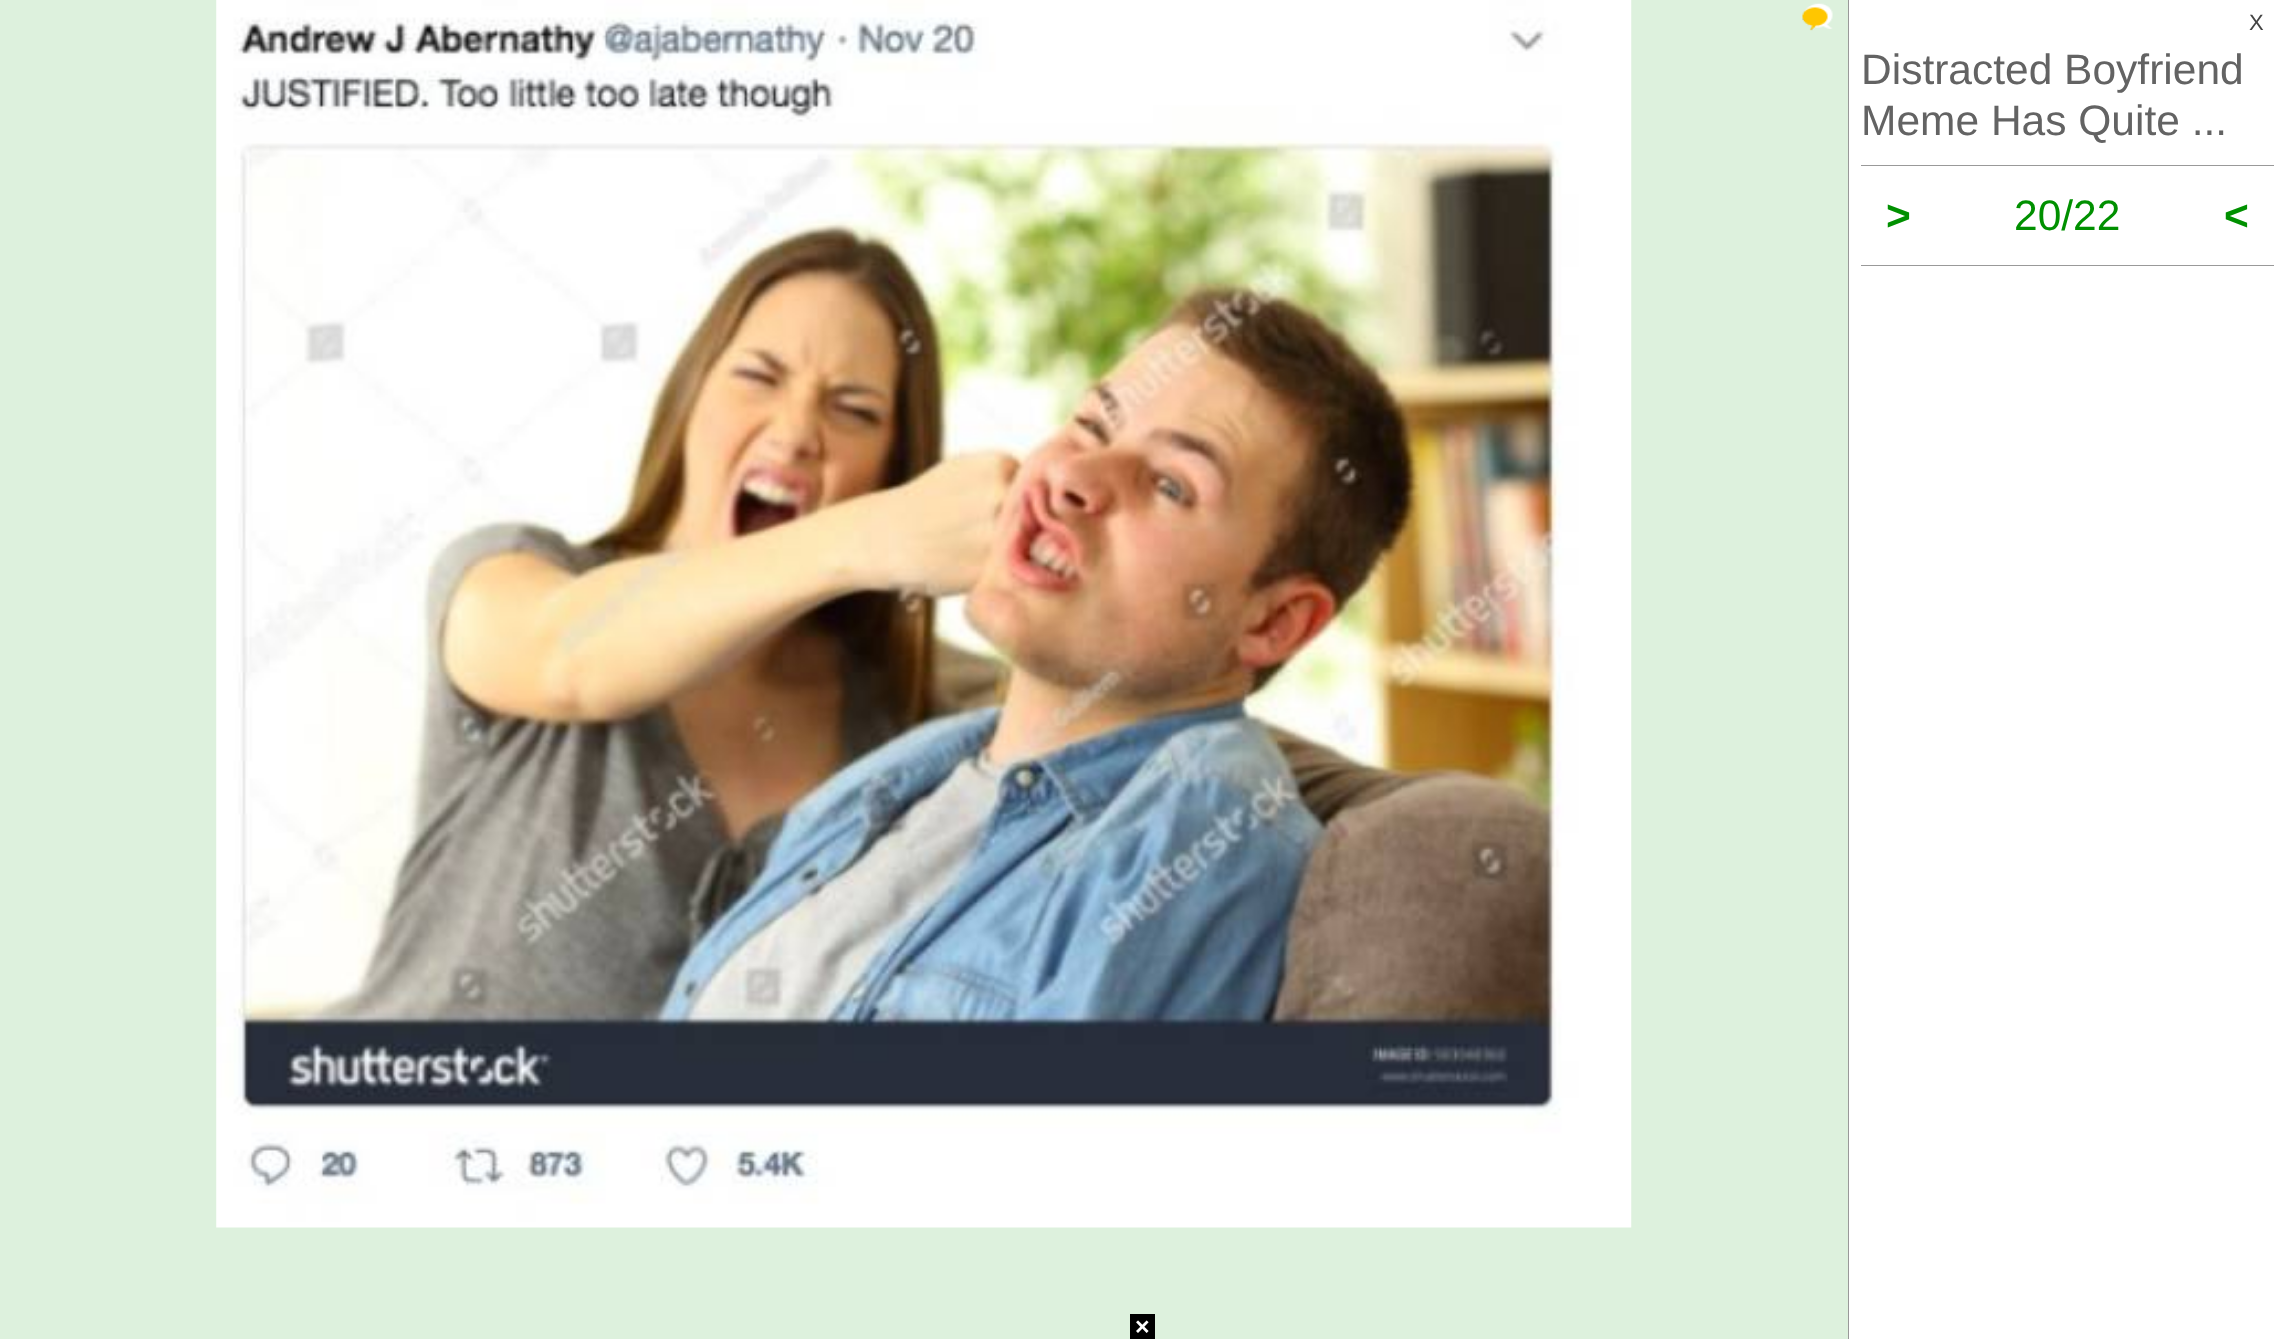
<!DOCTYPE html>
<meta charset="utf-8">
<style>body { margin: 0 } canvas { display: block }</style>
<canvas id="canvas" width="2286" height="1339"></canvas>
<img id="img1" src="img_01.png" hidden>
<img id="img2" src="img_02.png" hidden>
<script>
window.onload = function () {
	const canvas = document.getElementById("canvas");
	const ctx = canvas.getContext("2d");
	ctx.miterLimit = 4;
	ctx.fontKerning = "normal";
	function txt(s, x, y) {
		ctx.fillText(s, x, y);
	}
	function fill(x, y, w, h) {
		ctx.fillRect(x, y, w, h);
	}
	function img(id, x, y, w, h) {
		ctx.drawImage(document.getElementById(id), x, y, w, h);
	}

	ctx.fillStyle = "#DDF1DD";
	fill(0, 0, 2286, 1339);
	img("img1", 216, 0, 1416, 1228);
	img("img2", 1802, 3, 31, 28);
	ctx.fillStyle = "#FFFFFF";
	fill(1849, 0, 437, 1339);
	ctx.fillStyle = "#999999";
	fill(1848, 0, 1, 1339);
	fill(1861, 165, 413, 1);
	fill(1861, 265, 413, 1);
	ctx.fillStyle = "#000000";
	fill(1130, 1314, 25, 25);
	ctx.font = "22px Liberation Sans";
	ctx.fillStyle = "#444444";
	txt("X", 2249, 30);
	ctx.font = "42.5px Liberation Sans";
	ctx.fillStyle = "#636363";
	txt("Distracted Boyfriend", 1861, 84);
	txt("Meme Has Quite ...", 1861, 135);
	ctx.font = "bold 42.5px Liberation Sans";
	ctx.fillStyle = "#009000";
	txt(">", 1886, 230);
	ctx.font = "42.5px Liberation Sans";
	txt("20/22", 2014, 230);
	ctx.font = "bold 42.5px Liberation Sans";
	txt("<", 2224, 230);
	ctx.font = "bold 25px Liberation Sans";
	ctx.fillStyle = "#FFFFFF";
	txt("×", 1135, 1335);
};
</script>
